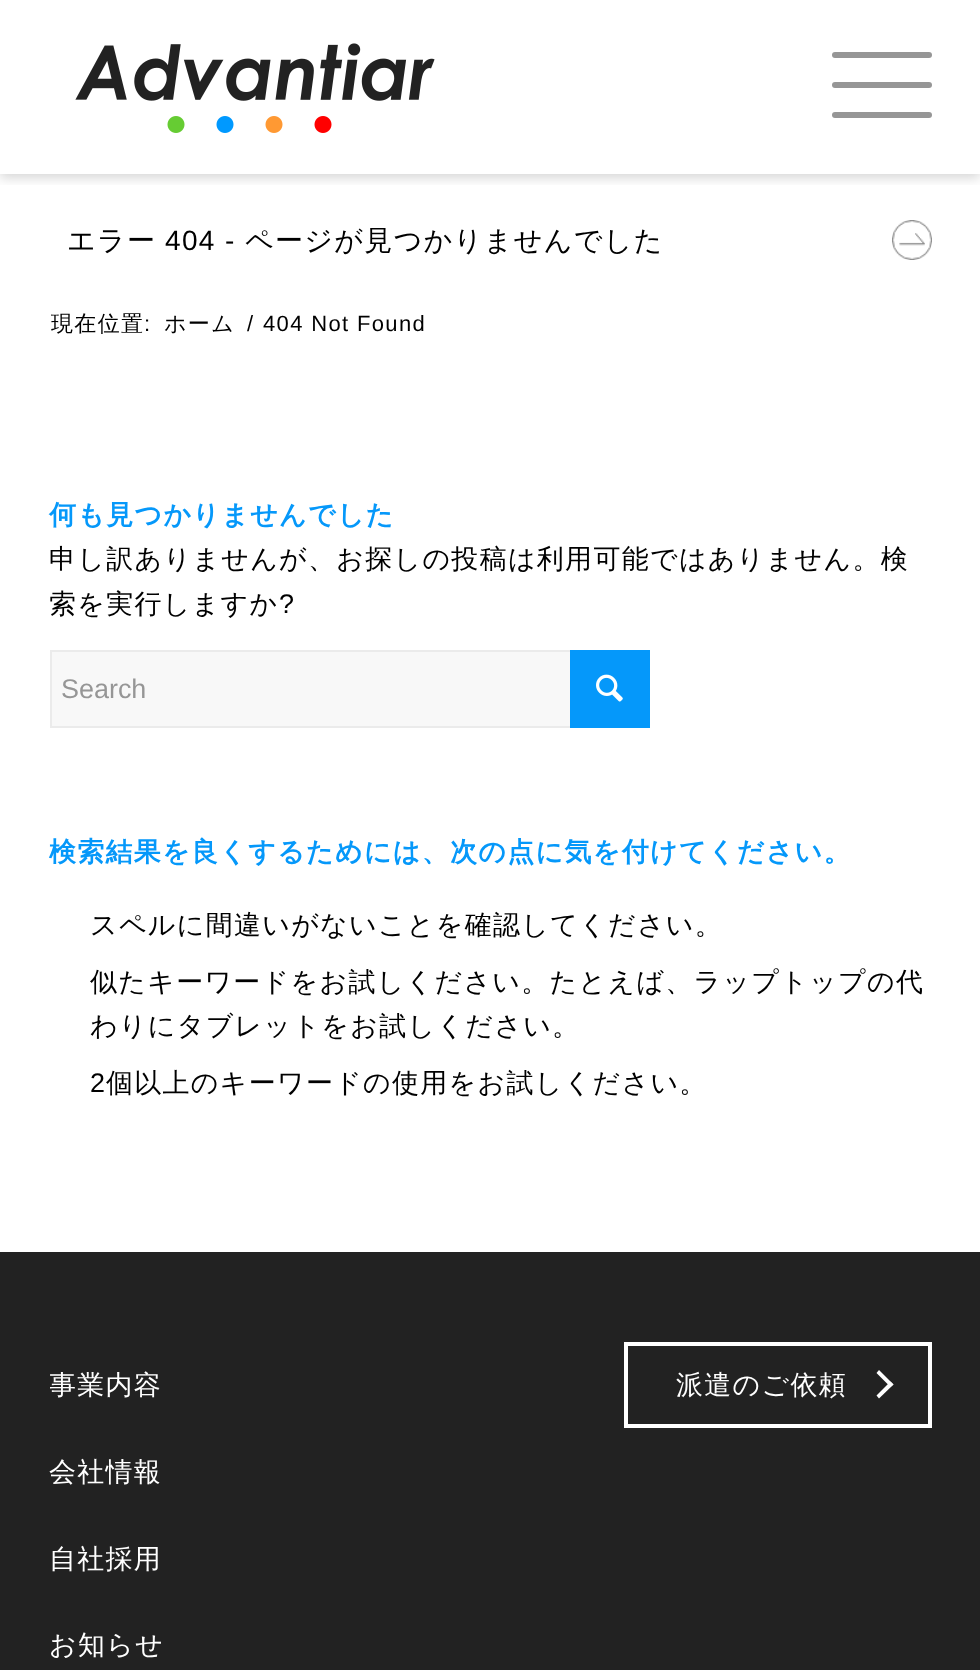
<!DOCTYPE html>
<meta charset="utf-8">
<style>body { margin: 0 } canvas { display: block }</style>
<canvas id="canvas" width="980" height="1670"></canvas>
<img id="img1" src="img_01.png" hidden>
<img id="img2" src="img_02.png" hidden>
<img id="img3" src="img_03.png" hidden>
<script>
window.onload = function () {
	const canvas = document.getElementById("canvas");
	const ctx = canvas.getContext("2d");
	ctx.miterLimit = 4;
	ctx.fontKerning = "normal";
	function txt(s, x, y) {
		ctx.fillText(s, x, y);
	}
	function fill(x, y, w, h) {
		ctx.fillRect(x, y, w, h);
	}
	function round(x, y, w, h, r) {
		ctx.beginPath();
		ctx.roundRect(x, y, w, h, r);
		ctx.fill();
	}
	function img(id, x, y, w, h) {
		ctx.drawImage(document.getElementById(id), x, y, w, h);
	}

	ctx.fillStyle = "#FFFFFF";
	fill(0, 0, 980, 1670);
	ctx.save();
	ctx.beginPath();
	ctx.rect(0, 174, 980, 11);
	ctx.clip();
	ctx.fillStyle = "rgba(0, 0, 0, 0.16)";
	ctx.filter = "blur(6px)";
	ctx.beginPath();
	ctx.rect(0, 4, 980, 174);
	ctx.fill();
	ctx.filter = "none";
	ctx.restore();
	img("img1", 75, 43, 360, 90);
	ctx.fillStyle = "#969696";
	round(832, 82, 100, 6, 3);
	round(832, 52, 100, 6, 3);
	round(832, 112, 100, 6, 3);
	img("img2", 892, 220, 40, 40);
	ctx.fillStyle = "#F8F8F8";
	fill(52, 652, 518, 74);
	ctx.strokeStyle = "#EBEBEB";
	ctx.lineWidth = 2;
	ctx.strokeRect(51, 651, 598, 76);
	ctx.fillStyle = "#0598FA";
	fill(570, 650, 80, 78);
	img("img3", 596, 674, 27, 28);
	ctx.fillStyle = "#222222";
	fill(0, 1252, 980, 418);
	ctx.strokeStyle = "#FFFFFF";
	ctx.lineWidth = 4;
	ctx.strokeRect(626, 1344, 304, 82);
	ctx.fillStyle = "#FFFFFF";
	ctx.beginPath();
	ctx.moveTo(879, 1370);
	ctx.lineTo(893.5, 1384.5);
	ctx.lineTo(890.5, 1387);
	ctx.lineTo(876.5, 1373);
	ctx.closePath();
	ctx.fill();
	ctx.beginPath();
	ctx.moveTo(890.5, 1381.5);
	ctx.lineTo(893.5, 1384.5);
	ctx.lineTo(879, 1398.5);
	ctx.lineTo(876.5, 1395.5);
	ctx.closePath();
	ctx.fill();
	ctx.letterSpacing = "1.35px";
	ctx.font = "500 28px WenQuanYi Zen Hei";
	ctx.fillStyle = "#000000";
	txt("エラー", 67, 250);
	ctx.font = "28px Liberation Sans";
	txt("404 -", 165, 250);
	ctx.font = "500 28px WenQuanYi Zen Hei";
	txt("ページが見つかりませんでした", 245, 250);
	ctx.font = "500 22px WenQuanYi Zen Hei";
	txt("現在位置", 51, 331);
	ctx.font = "22px Liberation Sans";
	txt(":", 144, 331);
	ctx.font = "500 22px WenQuanYi Zen Hei";
	txt("ホーム", 164, 331);
	ctx.font = "22px Liberation Sans";
	txt("/", 247, 331);
	txt("404 Not Found", 263, 331);
	ctx.font = "bold 26.95px WenQuanYi Zen Hei";
	ctx.fillStyle = "#0598FA";
	txt("何も見つかりませんでした", 49, 524);
	ctx.font = "500 26.95px WenQuanYi Zen Hei";
	ctx.fillStyle = "#000000";
	txt("申し訳ありませんが、お探しの投稿は利用可能ではありません。検", 49, 568);
	txt("索を実行しますか", 49, 613);
	ctx.font = "26.95px Liberation Sans";
	txt("?", 279, 613);
	ctx.letterSpacing = "0px";
	ctx.fillStyle = "#969696";
	txt("Search", 61, 698);
	ctx.letterSpacing = "1.35px";
	ctx.font = "bold 26.95px WenQuanYi Zen Hei";
	ctx.fillStyle = "#0598FA";
	txt("検索結果を良くするためには、次の点に気を付けてください。", 49, 861);
	ctx.font = "500 26.95px WenQuanYi Zen Hei";
	ctx.fillStyle = "#000000";
	txt("スペルに間違いがないことを確認してください。", 90, 934);
	txt("似たキーワードをお試しください。たとえば、ラップトップの代", 90, 991);
	txt("わりにタブレットをお試しください。", 90, 1035);
	ctx.font = "26.95px Liberation Sans";
	txt("2", 90, 1092);
	ctx.font = "500 26.95px WenQuanYi Zen Hei";
	txt("個以上のキーワードの使用をお試しください。", 106, 1092);
	ctx.save();
	ctx.beginPath();
	ctx.rect(50, 1342, 882, 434);
	ctx.clip();
	ctx.fillStyle = "#FFFFFF";
	txt("事業内容", 49, 1394);
	ctx.restore();
	ctx.fillStyle = "#FFFFFF";
	txt("派遣のご依頼", 676, 1394);
	txt("会社情報", 49, 1481);
	txt("自社採用", 49, 1568);
	txt("お知らせ", 49, 1654);
};
</script>
